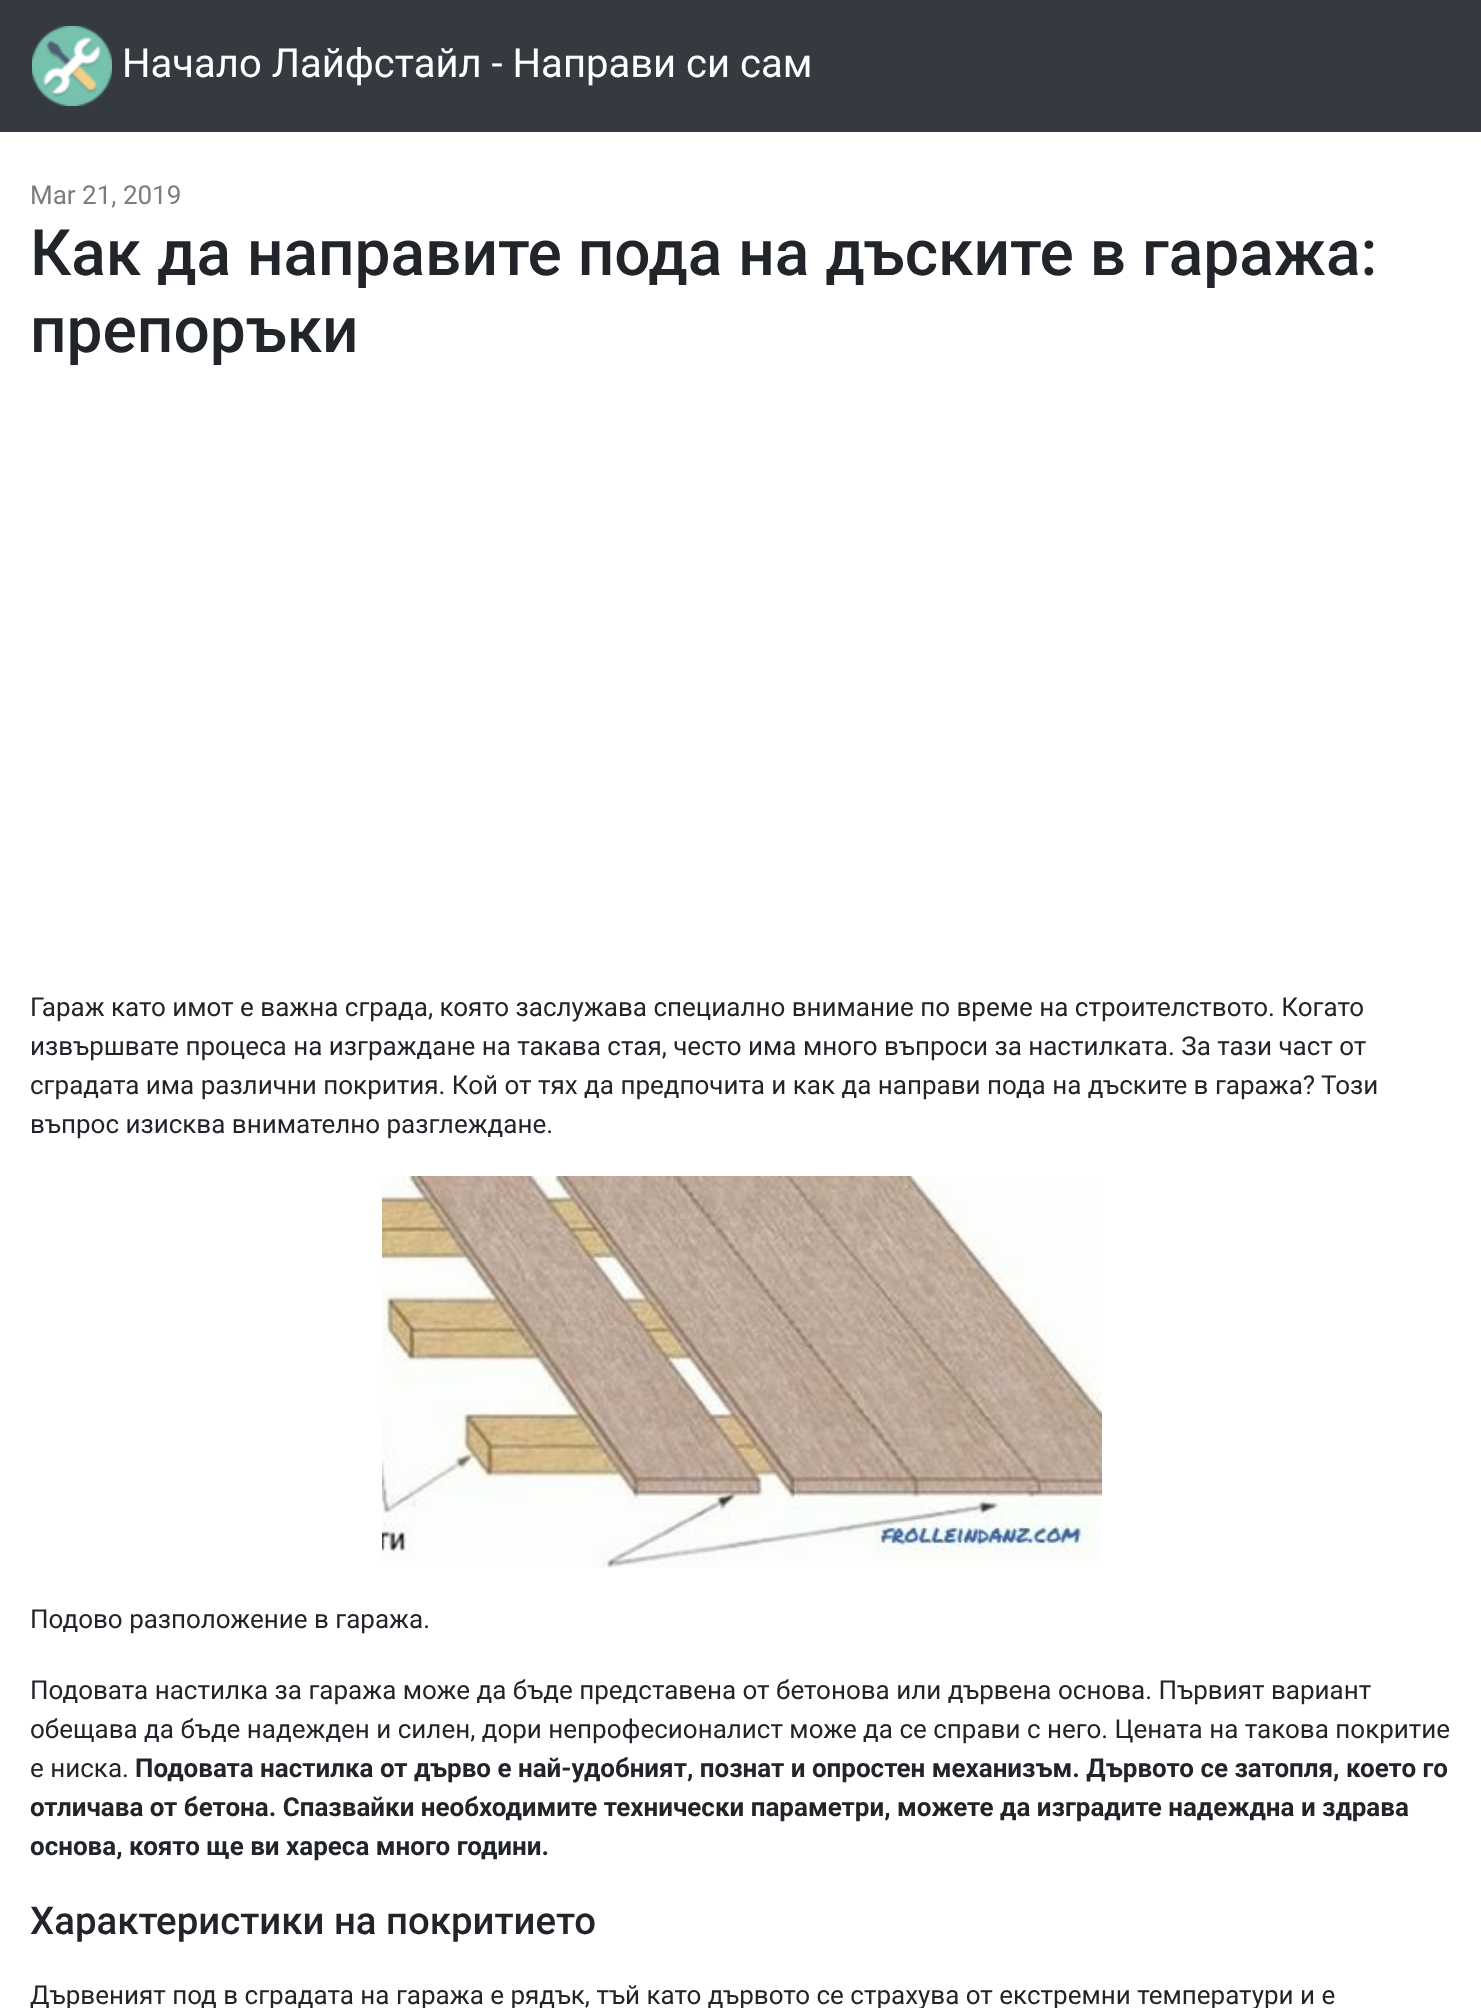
<!DOCTYPE html>
<meta charset="utf-8">
<style>body { margin: 0 } canvas { display: block }</style>
<canvas id="canvas" width="1481" height="2008"></canvas>
<img id="img1" src="img_01.png" hidden>
<img id="img2" src="img_02.png" hidden>
<script>
window.onload = function () {
	const canvas = document.getElementById("canvas");
	const ctx = canvas.getContext("2d");
	ctx.miterLimit = 4;
	ctx.fontKerning = "normal";
	function txt(s, x, y) {
		ctx.fillText(s, x, y);
	}
	function fill(x, y, w, h) {
		ctx.fillRect(x, y, w, h);
	}
	function img(id, x, y, w, h) {
		ctx.drawImage(document.getElementById(id), x, y, w, h);
	}

	ctx.fillStyle = "#FFFFFF";
	fill(0, 0, 1481, 2008);
	ctx.fillStyle = "#343A40";
	fill(0, 0, 1481, 132);
	img("img1", 32, 26, 80, 80);
	img("img2", 382, 1176, 720, 392);
	ctx.font = "40px Roboto";
	ctx.fillStyle = "#FFFFFF";
	txt("Начало Лайфстайл - Направи си сам", 122, 77);
	ctx.font = "26px Roboto";
	ctx.fillStyle = "#7C7C7C";
	txt("Mar 21, 2019", 30, 204);
	ctx.font = "500 64px Roboto";
	ctx.fillStyle = "#212529";
	txt("Как да направите пода на дъските в гаража:", 30, 275);
	txt("препоръки", 30, 352);
	ctx.font = "26px Roboto";
	txt("Гараж като имот е важна сграда, която заслужава специално внимание по време на строителството. Когато", 30, 1016);
	txt("извършвате процеса на изграждане на такава стая, често има много въпроси за настилката. За тази част от", 30, 1055);
	txt("сградата има различни покрития. Кой от тях да предпочита и как да направи пода на дъските в гаража? Този", 30, 1094);
	txt("въпрос изисква внимателно разглеждане.", 30, 1133);
	txt("Подово разположение в гаража.", 30, 1628);
	txt("Подовата настилка за гаража може да бъде представена от бетонова или дървена основа. Първият вариант", 30, 1699);
	txt("обещава да бъде надежден и силен, дори непрофесионалист може да се справи с него. Цената на такова покритие", 30, 1738);
	txt("е ниска.", 30, 1777);
	ctx.font = "bold 26px Roboto";
	txt("Подовата настилка от дърво е най-удобният, познат и опростен механизъм. Дървото се затопля, което го", 135, 1777);
	txt("отличава от бетона. Спазвайки необходимите технически параметри, можете да изградите надеждна и здрава", 30, 1816);
	txt("основа, която ще ви хареса много години.", 30, 1855);
	ctx.font = "500 38.4px Roboto";
	txt("Характеристики на покритието", 30, 1934);
	ctx.font = "26px Roboto";
	txt("Дървеният под в сградата на гаража е рядък, тъй като дървото се страхува от екстремни температури и е", 30, 2004);
};
</script>
